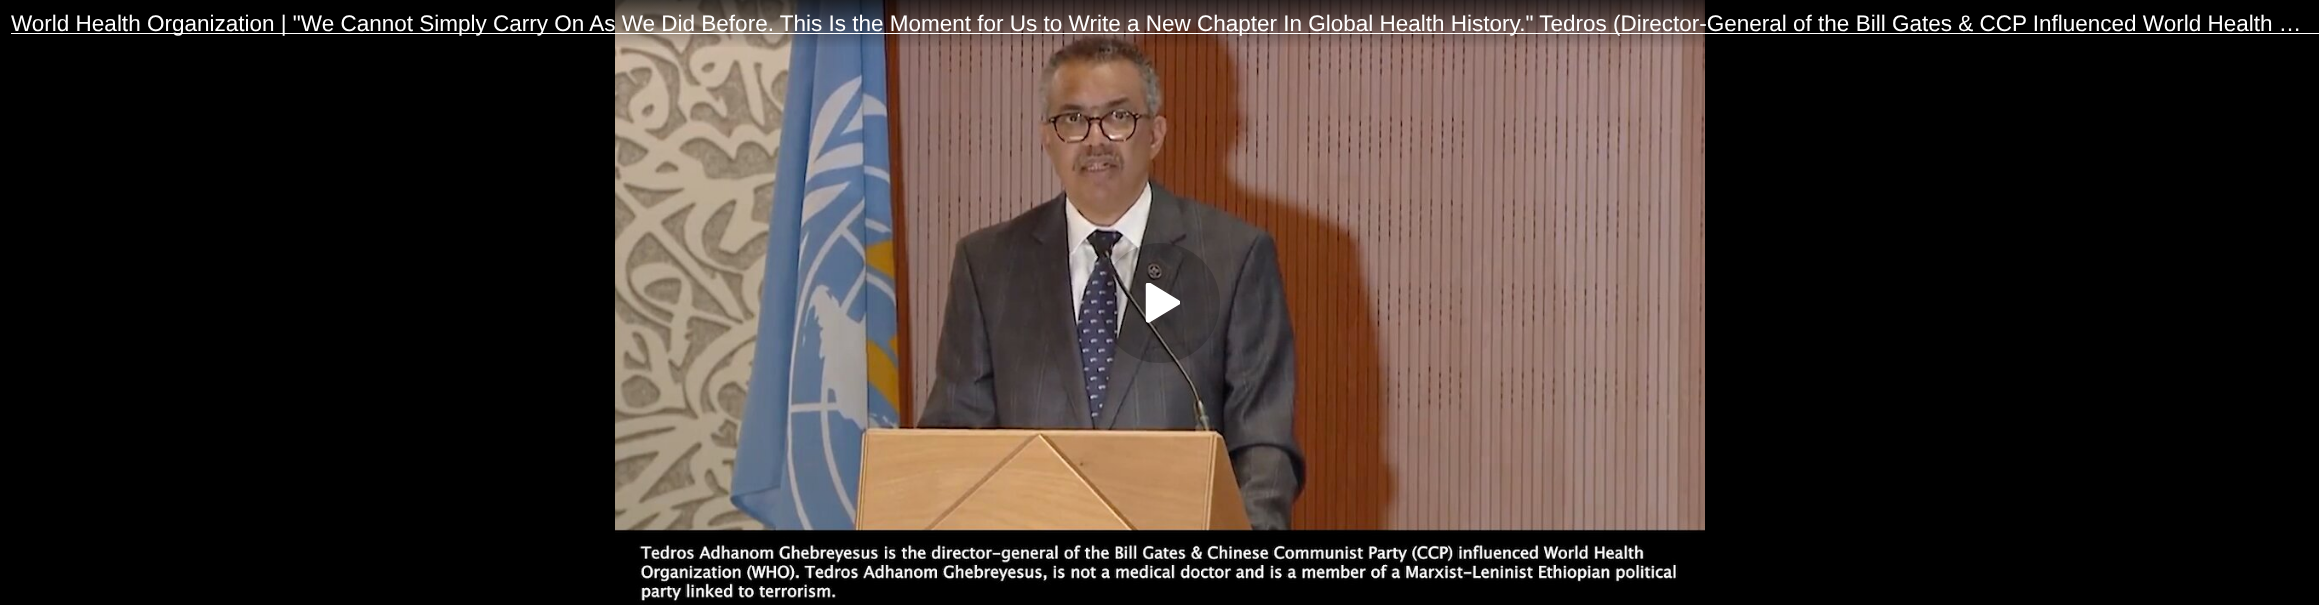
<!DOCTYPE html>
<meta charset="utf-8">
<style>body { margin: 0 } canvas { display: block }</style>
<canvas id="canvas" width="2319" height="605"></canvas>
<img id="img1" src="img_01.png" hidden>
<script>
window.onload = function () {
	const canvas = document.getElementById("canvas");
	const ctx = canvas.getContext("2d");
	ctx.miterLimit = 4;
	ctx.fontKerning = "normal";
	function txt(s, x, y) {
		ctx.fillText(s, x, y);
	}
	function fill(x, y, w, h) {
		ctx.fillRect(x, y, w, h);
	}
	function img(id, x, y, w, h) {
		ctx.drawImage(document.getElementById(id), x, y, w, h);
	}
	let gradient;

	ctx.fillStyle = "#000000";
	fill(0, 0, 2319, 605);
	img("img1", 615, 0, 1090, 605);
	gradient = ctx.createLinearGradient(1160, 0, 1160, 49);
	gradient.addColorStop(0, "rgba(0, 0, 0, 0.7)");
	gradient.addColorStop(1, "rgba(0, 0, 0, 0)");
	ctx.fillStyle = gradient;
	fill(615, 0, 1090, 47);
	ctx.fillStyle = "#FFFFFF";
	fill(11, 33, 2308, 1);
	ctx.fillStyle = "rgba(0, 0, 0, 0.2)";
	ctx.beginPath();
	ctx.arc(1160, 303, 60, 0, Math.PI * 2);
	ctx.fill();
	ctx.fillStyle = "#FFFFFF";
	ctx.beginPath();
	ctx.moveTo(1177.5, 302.5);
	ctx.lineTo(1148.5, 285);
	ctx.lineTo(1148.5, 320);
	ctx.closePath();
	ctx.fill();
	ctx.save();
	ctx.beginPath();
	ctx.rect(1140, 283, 40, 40);
	ctx.clip();
	ctx.beginPath();
	ctx.moveTo(1177.5, 302.5);
	ctx.lineTo(1148.5, 285);
	ctx.lineTo(1148.5, 320);
	ctx.closePath();
	ctx.strokeStyle = "#FFFFFF";
	ctx.lineWidth = 5.5;
	ctx.lineJoin = "round";
	ctx.stroke();
	ctx.restore();
	ctx.font = "22.5px Liberation Sans";
	txt("World Health Organization | \"We Cannot Simply Carry On As We Did Before. This Is the Moment for Us to Write a New Chapter In Global Health History.\" Tedros (Director-General of the Bill Gates & CCP Influenced World Health …", 11, 31);
};
</script>
